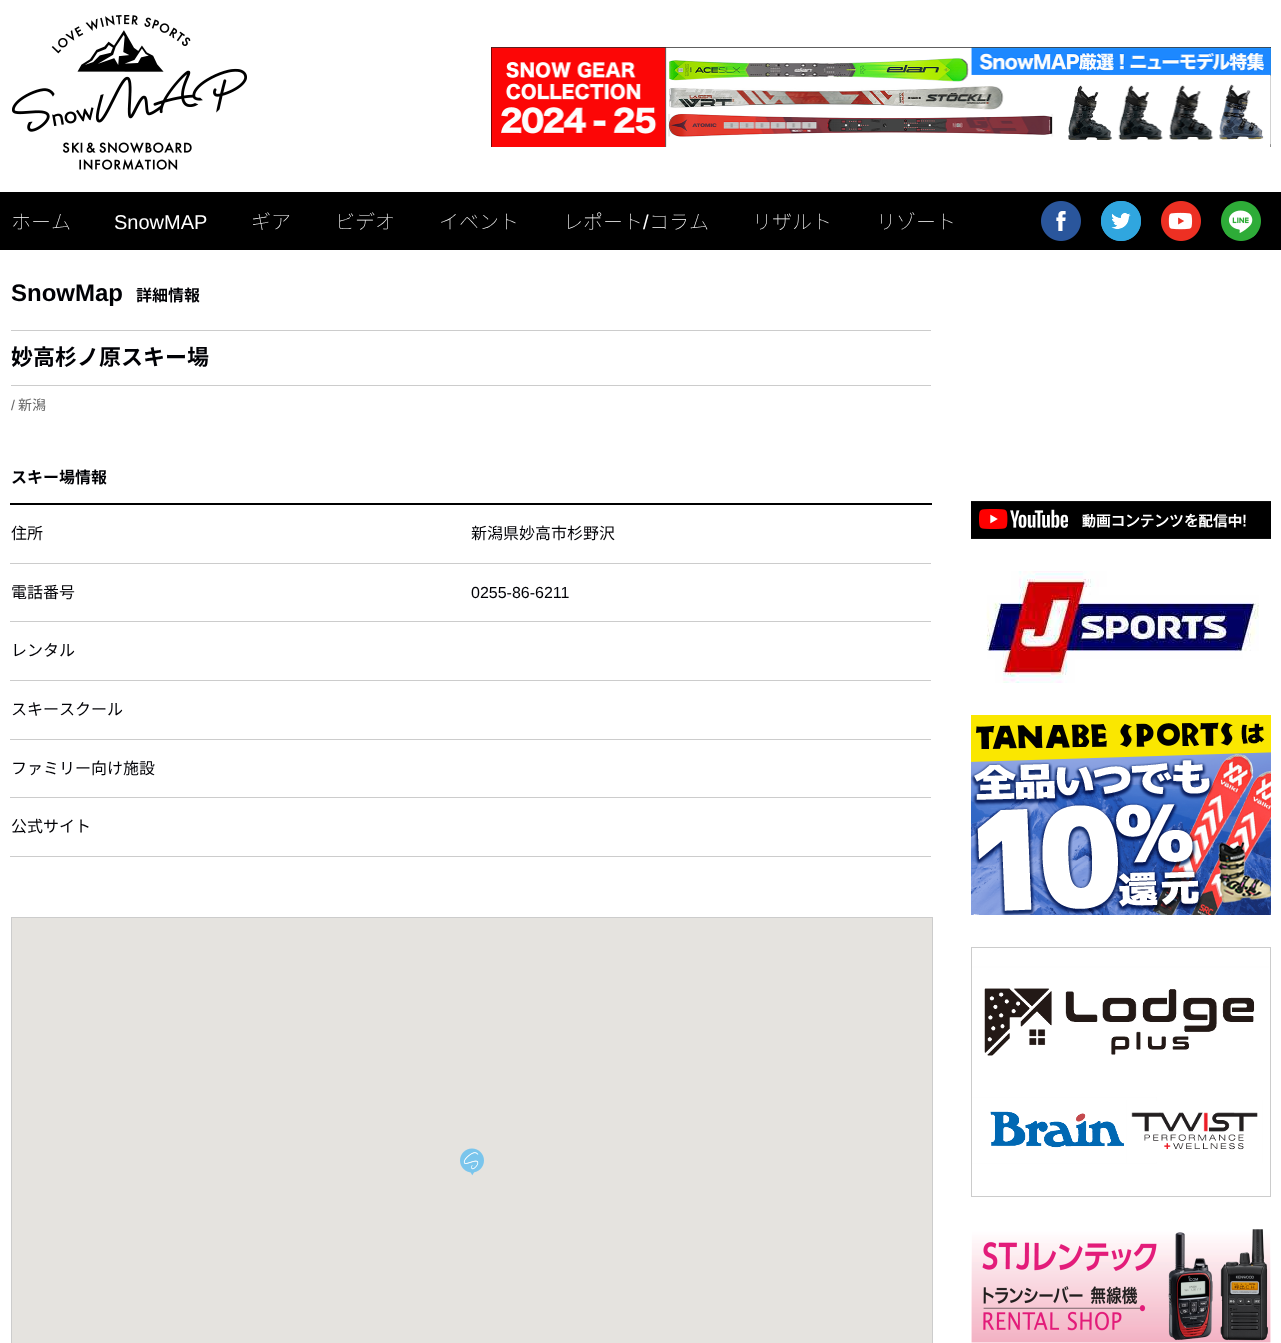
<!DOCTYPE html>
<meta charset="utf-8">
<style>body { margin: 0 } canvas { display: block }</style>
<canvas id="canvas" width="1281" height="1343"></canvas>
<img id="img1" src="img_01.png" hidden>
<img id="img2" src="img_02.png" hidden>
<img id="img3" src="img_03.png" hidden>
<img id="img4" src="img_04.png" hidden>
<img id="img5" src="img_05.png" hidden>
<img id="img6" src="img_06.png" hidden>
<img id="img7" src="img_07.png" hidden>
<img id="img8" src="img_08.png" hidden>
<img id="img9" src="img_09.png" hidden>
<img id="img10" src="img_10.png" hidden>
<img id="img11" src="img_11.png" hidden>
<img id="img12" src="img_12.png" hidden>
<script>
window.onload = function () {
	const canvas = document.getElementById("canvas");
	const ctx = canvas.getContext("2d");
	ctx.miterLimit = 4;
	ctx.fontKerning = "normal";
	function txt(s, x, y) {
		ctx.fillText(s, x, y);
	}
	function fill(x, y, w, h) {
		ctx.fillRect(x, y, w, h);
	}
	function img(id, x, y, w, h) {
		ctx.drawImage(document.getElementById(id), x, y, w, h);
	}

	ctx.fillStyle = "#FFFFFF";
	fill(0, 0, 1281, 1343);
	img("img1", 12, 15, 235, 155);
	img("img2", 491, 47, 780, 100);
	ctx.fillStyle = "#000000";
	fill(0, 192, 1281, 58);
	img("img3", 1041, 201, 40, 40);
	img("img4", 1101, 201, 40, 40);
	img("img5", 1161, 201, 40, 40);
	img("img6", 1221, 201, 40, 40);
	ctx.fillStyle = "#CCCCCC";
	fill(11, 330, 920, 1);
	fill(11, 385, 920, 1);
	ctx.fillStyle = "#000000";
	fill(10, 503, 922, 2);
	ctx.fillStyle = "#CCCCCC";
	fill(10, 563, 921, 1);
	fill(10, 621, 921, 1);
	fill(10, 680, 921, 1);
	fill(10, 739, 921, 1);
	fill(10, 797, 921, 1);
	fill(10, 856, 921, 1);
	ctx.strokeStyle = "#CCCCCC";
	ctx.strokeRect(11.5, 917.5, 921, 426);
	ctx.fillStyle = "#E5E3DF";
	fill(12, 918, 920, 425);
	img("img7", 460, 1148, 24, 28);
	img("img8", 971, 501, 300, 38);
	img("img9", 986, 571, 273, 112);
	img("img10", 971, 715, 300, 200);
	img("img11", 971, 947, 300, 250);
	img("img12", 971, 1229, 300, 114);
	ctx.font = "100 20px Noto Sans JP";
	ctx.fillStyle = "#FFFFFF";
	txt("ホーム", 11, 229);
	ctx.font = "20px Liberation Sans";
	txt("SnowMAP", 114, 229);
	ctx.font = "100 20px Noto Sans JP";
	txt("ギア", 251, 229);
	txt("ビデオ", 335, 229);
	txt("イベント", 439, 229);
	txt("レポート", 563, 229);
	ctx.font = "20px Liberation Sans";
	txt("/", 643, 229);
	ctx.font = "100 20px Noto Sans JP";
	txt("コラム", 649, 229);
	txt("リザルト", 752, 229);
	txt("リゾート", 876, 229);
	ctx.font = "bold 24px Liberation Sans";
	ctx.fillStyle = "#000105";
	txt("SnowMap", 11, 301);
	ctx.font = "bold 16px Noto Sans JP";
	txt("詳細情報", 136, 301);
	ctx.font = "bold 22px Noto Sans JP";
	txt("妙高杉ノ原スキー場", 11, 365);
	ctx.font = "14px Liberation Sans";
	ctx.fillStyle = "#666666";
	txt("/", 11, 410);
	ctx.font = "14px Noto Sans JP";
	txt("新潟", 18, 410);
	ctx.font = "bold 16px Noto Sans JP";
	ctx.fillStyle = "#000105";
	txt("スキー場情報", 11, 483);
	ctx.font = "16px Noto Sans JP";
	txt("住所", 11, 539);
	txt("新潟県妙高市杉野沢", 471, 539);
	txt("電話番号", 11, 598);
	ctx.font = "16px Liberation Sans";
	txt("0255-86-6211", 471, 598);
	ctx.font = "16px Noto Sans JP";
	txt("レンタル", 11, 656);
	txt("スキースクール", 11, 715);
	txt("ファミリー向け施設", 11, 774);
	txt("公式サイト", 11, 832);
};
</script>
